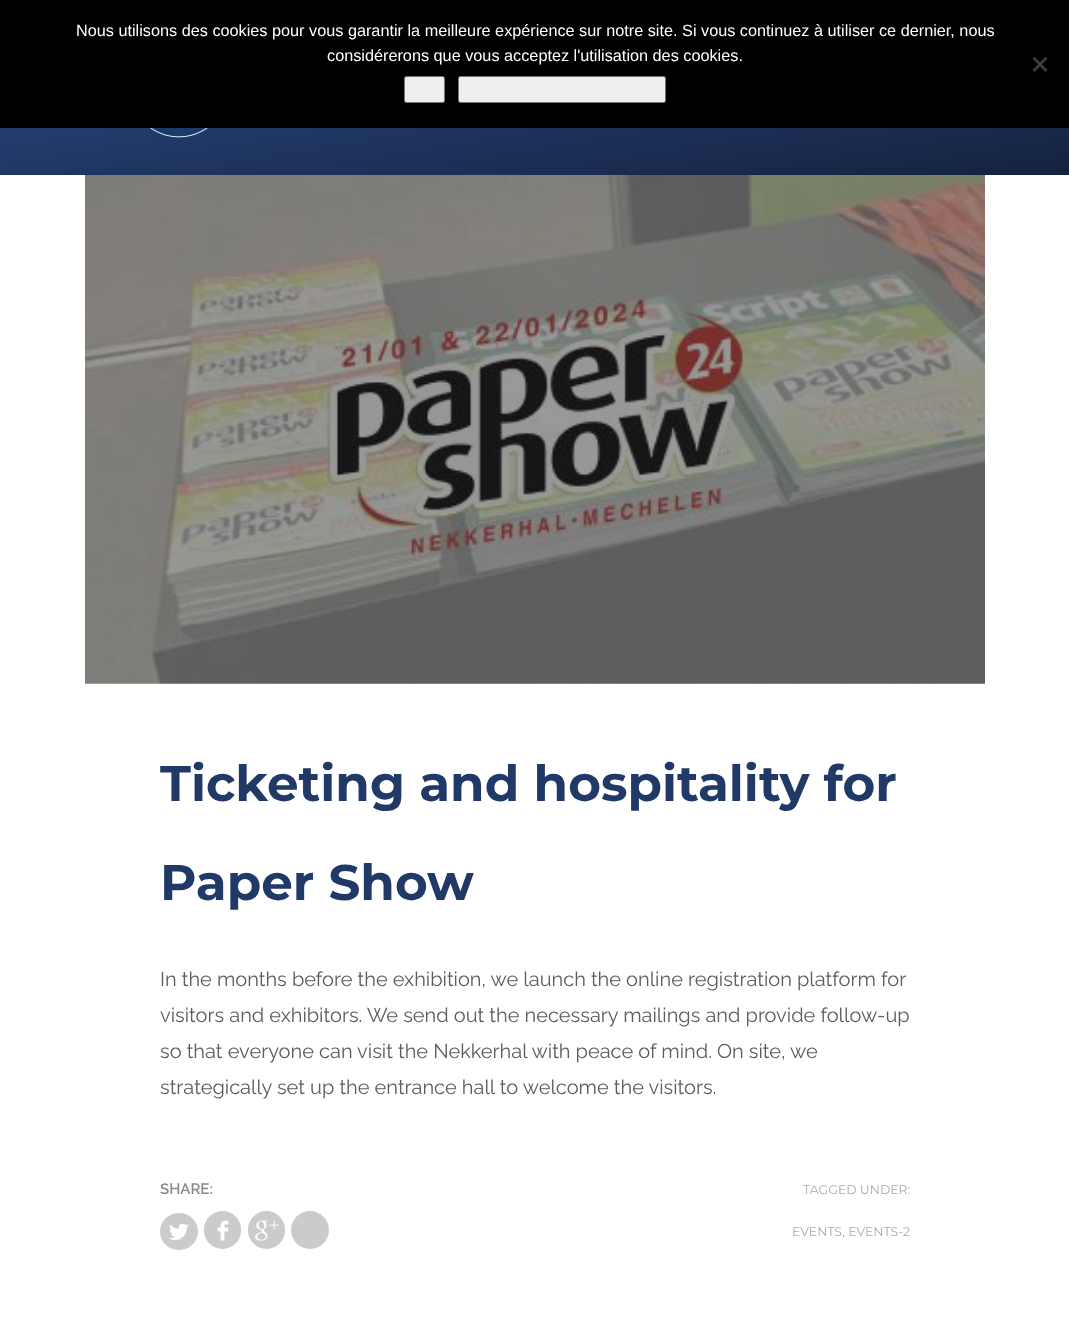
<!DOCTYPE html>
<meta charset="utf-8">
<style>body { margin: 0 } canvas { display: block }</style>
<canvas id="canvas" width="1069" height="1333"></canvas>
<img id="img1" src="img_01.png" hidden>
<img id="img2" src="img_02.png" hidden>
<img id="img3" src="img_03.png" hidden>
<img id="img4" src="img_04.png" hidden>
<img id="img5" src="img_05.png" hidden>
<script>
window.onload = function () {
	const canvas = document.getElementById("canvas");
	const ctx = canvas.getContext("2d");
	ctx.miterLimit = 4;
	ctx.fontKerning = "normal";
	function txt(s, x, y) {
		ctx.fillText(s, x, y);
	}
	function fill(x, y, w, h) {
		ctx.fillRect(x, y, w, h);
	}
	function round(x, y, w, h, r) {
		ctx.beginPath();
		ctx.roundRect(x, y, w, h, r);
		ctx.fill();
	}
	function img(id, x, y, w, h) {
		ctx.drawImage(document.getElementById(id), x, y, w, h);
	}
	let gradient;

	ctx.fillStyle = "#FFFFFF";
	fill(0, 0, 1069, 1333);
	ctx.fillStyle = "#000000";
	fill(0, 0, 1069, 128);
	ctx.fillStyle = "#404040";
	ctx.beginPath();
	ctx.moveTo(1045.5, 57);
	ctx.lineTo(1047.5, 58.5);
	ctx.lineTo(1034.5, 72);
	ctx.lineTo(1032.5, 70);
	ctx.closePath();
	ctx.fill();
	ctx.beginPath();
	ctx.moveTo(1032.5, 58.5);
	ctx.lineTo(1034.5, 57);
	ctx.lineTo(1047.5, 70);
	ctx.lineTo(1045.5, 72);
	ctx.closePath();
	ctx.fill();
	ctx.fillStyle = "#EFEFEF";
	ctx.beginPath();
	ctx.roundRect(404.5, 76.5, 40, 26, 2);
	ctx.fill();
	ctx.strokeStyle = "#767676";
	ctx.stroke();
	ctx.beginPath();
	ctx.roundRect(458.5, 76.5, 207, 26, 2);
	ctx.fill();
	ctx.stroke();
	gradient = ctx.createLinearGradient(507, -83, 563, 258);
	gradient.addColorStop(0, "#2C4D8C");
	gradient.addColorStop(1, "#14223E");
	ctx.fillStyle = gradient;
	fill(0, 128, 1069, 47);
	img("img1", 146, 128, 67, 12);
	img("img2", 85, 175, 900, 509);
	ctx.fillStyle = "#CBCBCB";
	round(160, 1213, 38, 37, 18.5);
	img("img3", 169, 1223, 20, 17);
	round(204, 1211, 37, 38, 18.5);
	img("img4", 217, 1220, 12, 21);
	round(248, 1211, 37, 38, 18.5);
	img("img5", 255, 1220, 24, 21);
	ctx.beginPath();
	ctx.arc(310, 1230, 19, 0, Math.PI * 2);
	ctx.fill();
	ctx.font = "16.25px Liberation Sans";
	ctx.fillStyle = "#FFFFFF";
	txt("Nous utilisons des cookies pour vous garantir la meilleure expérience sur notre site. Si vous continuez à utiliser ce dernier, nous", 76, 36);
	txt("considérerons que vous acceptez l'utilisation des cookies.", 327, 61);
	ctx.font = "bold 50px Montserrat";
	ctx.fillStyle = "#203966";
	txt("Ticketing and hospitality for", 160, 801);
	txt("Paper Show", 160, 900);
	ctx.font = "20px Raleway";
	ctx.fillStyle = "#5D5D5D";
	txt("In the months before the exhibition, we launch the online registration platform for", 160, 986);
	txt("visitors and exhibitors. We send out the necessary mailings and provide follow-up", 160, 1022);
	txt("so that everyone can visit the Nekkerhal with peace of mind. On site, we", 160, 1058);
	txt("strategically set up the entrance hall to welcome the visitors.", 160, 1094);
	ctx.font = "600 15px Raleway";
	ctx.fillStyle = "#8A8A8A";
	txt("SHARE:", 160, 1194);
	ctx.font = "12.5px Montserrat";
	ctx.fillStyle = "#AAAAAA";
	txt("TAGGED UNDER:", 803, 1194);
	txt("EVENTS, EVENTS-2", 792, 1236);
};
</script>
